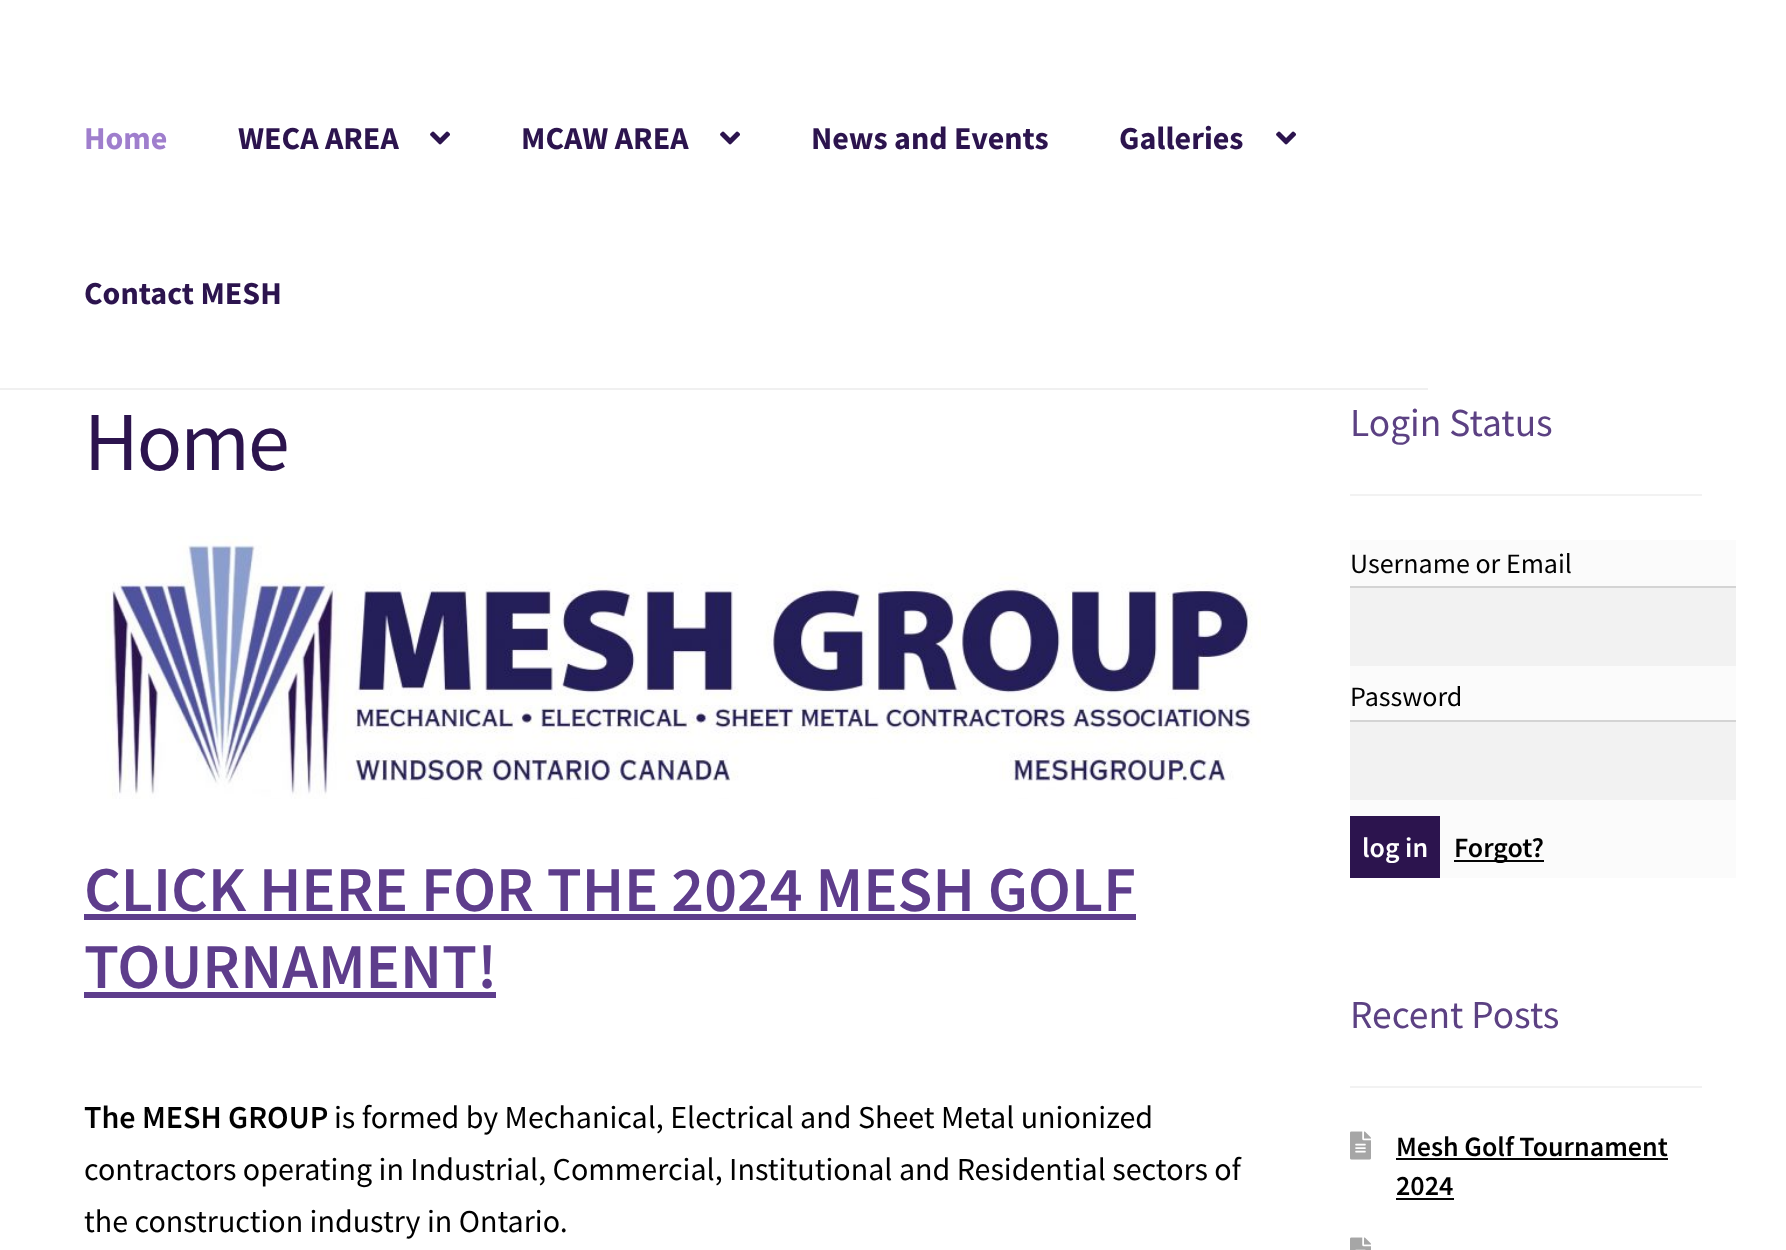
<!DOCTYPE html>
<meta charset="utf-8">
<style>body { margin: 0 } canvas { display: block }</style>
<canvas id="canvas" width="1786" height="1250"></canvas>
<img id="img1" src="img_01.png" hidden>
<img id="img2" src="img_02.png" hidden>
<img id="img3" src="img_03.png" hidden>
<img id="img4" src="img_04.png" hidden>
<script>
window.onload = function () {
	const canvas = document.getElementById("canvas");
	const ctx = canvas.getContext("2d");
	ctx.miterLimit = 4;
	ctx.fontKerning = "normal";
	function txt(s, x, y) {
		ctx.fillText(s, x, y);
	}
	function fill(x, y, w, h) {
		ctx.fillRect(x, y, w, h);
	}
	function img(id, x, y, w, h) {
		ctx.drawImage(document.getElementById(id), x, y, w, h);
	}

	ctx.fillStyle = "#FFFFFF";
	fill(0, 0, 1786, 1250);
	ctx.fillStyle = "#F0F0F0";
	fill(0, 388, 1428, 2);
	img("img1", 430, 131, 20, 14);
	img("img1", 720, 131, 20, 14);
	img("img1", 1276, 131, 20, 14);
	img("img2", 105, 536, 1156, 263);
	ctx.fillStyle = "#5E3D8C";
	fill(84, 914, 1052, 6);
	fill(84, 992, 412, 6);
	ctx.fillStyle = "#F2F2F2";
	fill(1350, 494, 352, 2);
	ctx.fillStyle = "#FBFBFB";
	fill(1350, 540, 386, 338);
	ctx.fillStyle = "#F2F2F2";
	fill(1350, 588, 386, 78);
	ctx.fillStyle = "#D4D4D4";
	fill(1350, 586, 386, 2);
	ctx.fillStyle = "#F2F2F2";
	fill(1350, 722, 386, 78);
	ctx.fillStyle = "#D4D4D4";
	fill(1350, 720, 386, 2);
	ctx.fillStyle = "#2C144E";
	fill(1350, 816, 90, 62);
	ctx.fillStyle = "#050505";
	fill(1454, 860, 90, 2);
	ctx.fillStyle = "#F2F2F2";
	fill(1350, 1086, 352, 2);
	img("img3", 1350, 1131, 21, 29);
	ctx.fillStyle = "#050505";
	fill(1396, 1158, 272, 2);
	fill(1396, 1198, 58, 2);
	img("img4", 1350, 1237, 21, 13);
	ctx.font = "bold 32px Source Sans Pro";
	ctx.fillStyle = "#9F7ECD";
	txt("Home", 84, 149);
	ctx.fillStyle = "#2C144E";
	txt("WECA AREA", 238, 149);
	txt("MCAW AREA", 521, 149);
	txt("News and Events", 811, 149);
	txt("Galleries", 1119, 149);
	txt("Contact MESH", 84, 304);
	ctx.letterSpacing = "-2px";
	ctx.font = "84px Source Sans Pro";
	txt("Home", 84, 470);
	ctx.letterSpacing = "0px";
	ctx.font = "600 64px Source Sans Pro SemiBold";
	ctx.fillStyle = "#5E3D8C";
	txt("CLICK HERE FOR THE 2024 MESH GOLF", 84, 911);
	txt("TOURNAMENT!", 84, 988);
	ctx.font = "600 32px Source Sans Pro SemiBold";
	ctx.fillStyle = "#000000";
	txt("The MESH GROUP", 84, 1128);
	ctx.font = "32px Source Sans Pro";
	txt("is formed by Mechanical, Electrical and Sheet Metal unionized", 334, 1128);
	txt("contractors operating in Industrial, Commercial, Institutional and Residential sectors of", 84, 1180);
	txt("the construction industry in Ontario.", 84, 1232);
	ctx.font = "39.5px Source Sans Pro";
	ctx.fillStyle = "#5C4183";
	txt("Login Status", 1350, 436);
	ctx.font = "28px Source Sans Pro";
	ctx.fillStyle = "#000000";
	txt("Username or Email", 1350, 573);
	txt("Password", 1350, 706);
	ctx.font = "600 28px Source Sans Pro SemiBold";
	ctx.fillStyle = "#FFFFFF";
	txt("log in", 1362, 857);
	ctx.fillStyle = "#000000";
	txt("Forgot?", 1454, 857);
	ctx.font = "39.5px Source Sans Pro";
	ctx.fillStyle = "#5C4183";
	txt("Recent Posts", 1350, 1028);
	ctx.font = "600 28px Source Sans Pro SemiBold";
	ctx.fillStyle = "#000000";
	txt("Mesh Golf Tournament", 1396, 1156);
	txt("2024", 1396, 1195);
};
</script>
